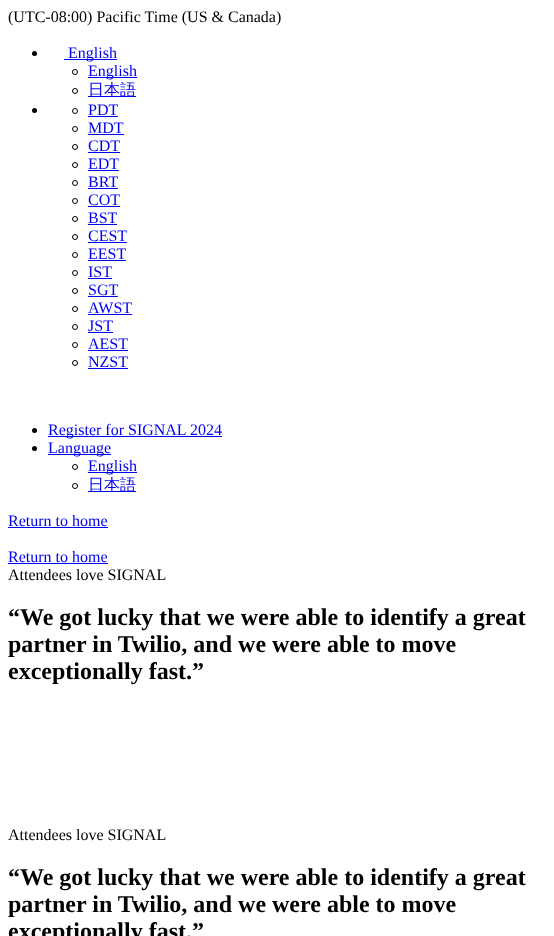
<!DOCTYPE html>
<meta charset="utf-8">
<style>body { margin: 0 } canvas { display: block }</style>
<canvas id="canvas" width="554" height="936"></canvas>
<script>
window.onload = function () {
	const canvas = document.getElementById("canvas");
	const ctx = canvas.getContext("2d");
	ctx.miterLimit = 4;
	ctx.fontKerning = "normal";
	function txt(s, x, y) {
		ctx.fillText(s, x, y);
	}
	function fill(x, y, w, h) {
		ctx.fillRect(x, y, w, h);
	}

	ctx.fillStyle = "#FFFFFF";
	fill(0, 0, 554, 936);
	ctx.fillStyle = "#000000";
	ctx.beginPath();
	ctx.arc(34.5, 53.5, 2.5, 0, Math.PI * 2);
	ctx.fill();
	ctx.fillStyle = "#0000EE";
	fill(64, 59, 53, 1);
	ctx.beginPath();
	ctx.arc(75, 72, 2.5, 0, Math.PI * 2);
	ctx.strokeStyle = "#000000";
	ctx.stroke();
	fill(88, 77, 49, 1);
	ctx.beginPath();
	ctx.arc(75, 91, 2.5, 0, Math.PI * 2);
	ctx.stroke();
	fill(88, 96, 48, 1);
	ctx.fillStyle = "#000000";
	ctx.beginPath();
	ctx.arc(34.5, 110.5, 2.5, 0, Math.PI * 2);
	ctx.fill();
	ctx.beginPath();
	ctx.arc(75, 111, 2.5, 0, Math.PI * 2);
	ctx.stroke();
	ctx.fillStyle = "#0000EE";
	fill(88, 116, 30, 1);
	ctx.beginPath();
	ctx.arc(75, 129, 2.5, 0, Math.PI * 2);
	ctx.stroke();
	fill(88, 134, 36, 1);
	ctx.beginPath();
	ctx.arc(75, 147, 2.5, 0, Math.PI * 2);
	ctx.stroke();
	fill(88, 152, 32, 1);
	ctx.beginPath();
	ctx.arc(75, 165, 2.5, 0, Math.PI * 2);
	ctx.stroke();
	fill(88, 170, 31, 1);
	ctx.beginPath();
	ctx.arc(75, 183, 2.5, 0, Math.PI * 2);
	ctx.stroke();
	fill(88, 188, 30, 1);
	ctx.beginPath();
	ctx.arc(75, 201, 2.5, 0, Math.PI * 2);
	ctx.stroke();
	fill(88, 206, 32, 1);
	ctx.beginPath();
	ctx.arc(75, 219, 2.5, 0, Math.PI * 2);
	ctx.stroke();
	fill(88, 224, 29, 1);
	ctx.beginPath();
	ctx.arc(75, 237, 2.5, 0, Math.PI * 2);
	ctx.stroke();
	fill(88, 242, 39, 1);
	ctx.beginPath();
	ctx.arc(75, 255, 2.5, 0, Math.PI * 2);
	ctx.stroke();
	fill(88, 260, 38, 1);
	ctx.beginPath();
	ctx.arc(75, 273, 2.5, 0, Math.PI * 2);
	ctx.stroke();
	fill(88, 278, 24, 1);
	ctx.beginPath();
	ctx.arc(75, 291, 2.5, 0, Math.PI * 2);
	ctx.stroke();
	fill(88, 296, 30, 1);
	ctx.beginPath();
	ctx.arc(75, 309, 2.5, 0, Math.PI * 2);
	ctx.stroke();
	fill(88, 314, 44, 1);
	ctx.beginPath();
	ctx.arc(75, 327, 2.5, 0, Math.PI * 2);
	ctx.stroke();
	fill(88, 332, 25, 1);
	ctx.beginPath();
	ctx.arc(75, 345, 2.5, 0, Math.PI * 2);
	ctx.stroke();
	fill(88, 350, 40, 1);
	ctx.beginPath();
	ctx.arc(75, 363, 2.5, 0, Math.PI * 2);
	ctx.stroke();
	fill(88, 368, 40, 1);
	ctx.fillStyle = "#000000";
	ctx.beginPath();
	ctx.arc(34.5, 430.5, 2.5, 0, Math.PI * 2);
	ctx.fill();
	ctx.fillStyle = "#0000EE";
	fill(48, 436, 174, 1);
	ctx.fillStyle = "#000000";
	ctx.beginPath();
	ctx.arc(34.5, 448.5, 2.5, 0, Math.PI * 2);
	ctx.fill();
	ctx.fillStyle = "#0000EE";
	fill(48, 454, 63, 1);
	ctx.beginPath();
	ctx.arc(75, 467, 2.5, 0, Math.PI * 2);
	ctx.stroke();
	fill(88, 472, 49, 1);
	ctx.beginPath();
	ctx.arc(75, 486, 2.5, 0, Math.PI * 2);
	ctx.stroke();
	fill(88, 491, 48, 1);
	fill(8, 527, 100, 1);
	fill(8, 563, 100, 1);
	ctx.font = "16px Liberation Serif";
	ctx.fillStyle = "#000000";
	txt("(UTC-08:00) Pacific Time (US & Canada)", 8, 22);
	ctx.fillStyle = "#0000EE";
	txt("English", 68, 58);
	txt("English", 88, 76);
	ctx.font = "500 16px WenQuanYi Zen Hei";
	txt("日本語", 88, 95);
	ctx.font = "16px Liberation Serif";
	txt("PDT", 88, 115);
	txt("MDT", 88, 133);
	txt("CDT", 88, 151);
	txt("EDT", 88, 169);
	txt("BRT", 88, 187);
	txt("COT", 88, 205);
	txt("BST", 88, 223);
	txt("CEST", 88, 241);
	txt("EEST", 88, 259);
	txt("IST", 88, 277);
	txt("SGT", 88, 295);
	txt("AWST", 88, 313);
	txt("JST", 88, 331);
	txt("AEST", 88, 349);
	txt("NZST", 88, 367);
	txt("Register for SIGNAL 2024", 48, 435);
	txt("Language", 48, 453);
	txt("English", 88, 471);
	ctx.font = "500 16px WenQuanYi Zen Hei";
	txt("日本語", 88, 490);
	ctx.font = "16px Liberation Serif";
	txt("Return to home", 8, 526);
	txt("Return to home", 8, 562);
	ctx.fillStyle = "#000000";
	txt("Attendees love SIGNAL", 8, 580);
	ctx.font = "bold 24px Liberation Serif";
	txt("“We got lucky that we were able to identify a great", 8, 625);
	txt("partner in Twilio, and we were able to move", 8, 652);
	txt("exceptionally fast.”", 8, 679);
	ctx.font = "16px Liberation Serif";
	txt("Attendees love SIGNAL", 8, 840);
	ctx.font = "bold 24px Liberation Serif";
	txt("“We got lucky that we were able to identify a great", 8, 885);
	txt("partner in Twilio, and we were able to move", 8, 912);
	txt("exceptionally fast.”", 8, 939);
};
</script>
